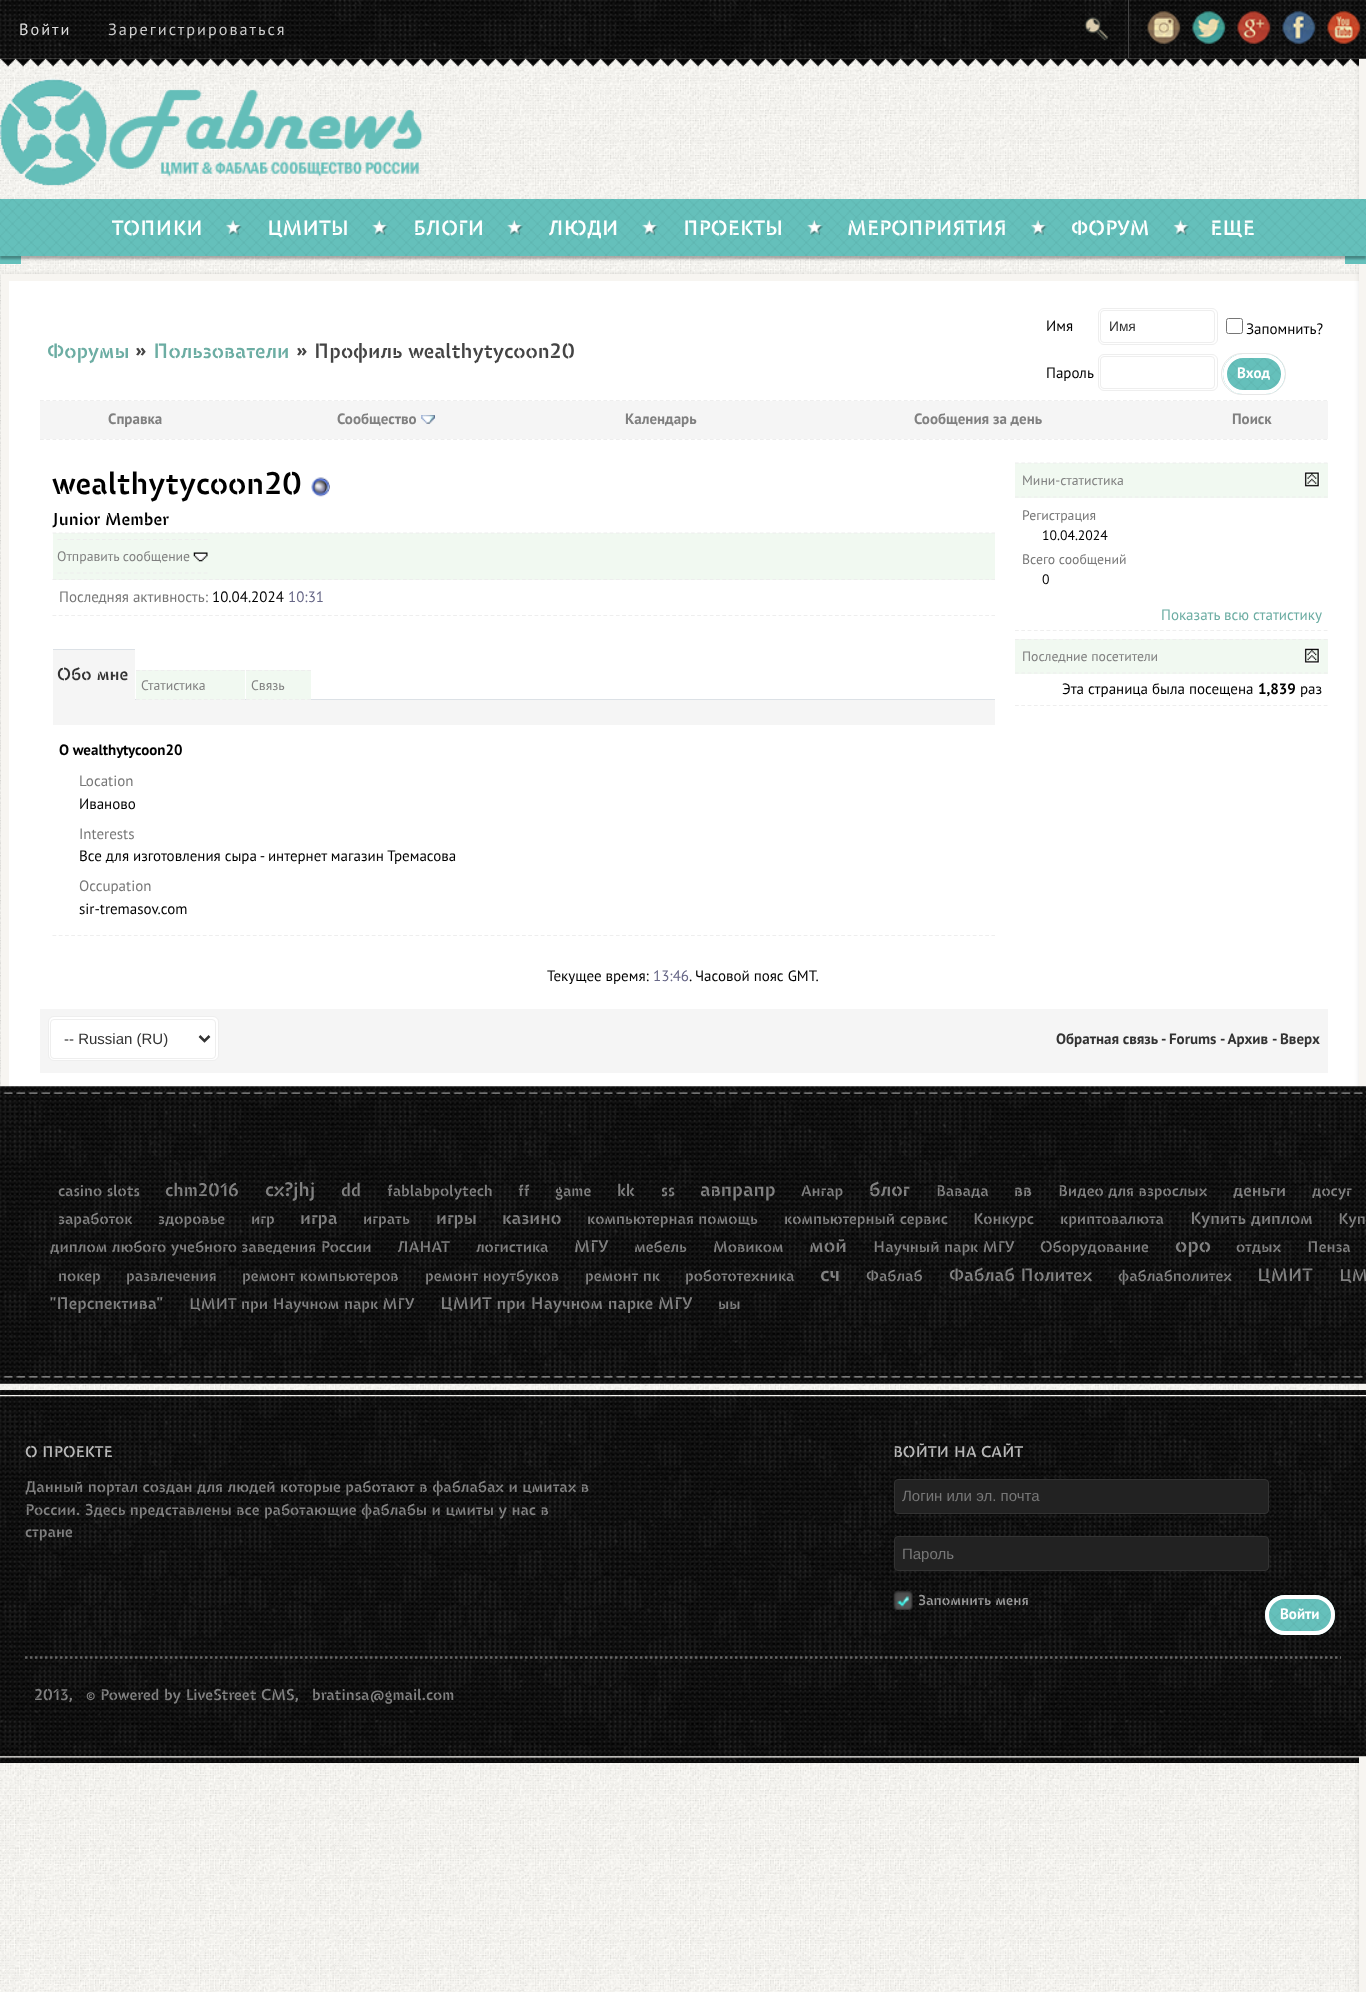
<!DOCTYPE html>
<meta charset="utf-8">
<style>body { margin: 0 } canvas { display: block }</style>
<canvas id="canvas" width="1366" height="1992"></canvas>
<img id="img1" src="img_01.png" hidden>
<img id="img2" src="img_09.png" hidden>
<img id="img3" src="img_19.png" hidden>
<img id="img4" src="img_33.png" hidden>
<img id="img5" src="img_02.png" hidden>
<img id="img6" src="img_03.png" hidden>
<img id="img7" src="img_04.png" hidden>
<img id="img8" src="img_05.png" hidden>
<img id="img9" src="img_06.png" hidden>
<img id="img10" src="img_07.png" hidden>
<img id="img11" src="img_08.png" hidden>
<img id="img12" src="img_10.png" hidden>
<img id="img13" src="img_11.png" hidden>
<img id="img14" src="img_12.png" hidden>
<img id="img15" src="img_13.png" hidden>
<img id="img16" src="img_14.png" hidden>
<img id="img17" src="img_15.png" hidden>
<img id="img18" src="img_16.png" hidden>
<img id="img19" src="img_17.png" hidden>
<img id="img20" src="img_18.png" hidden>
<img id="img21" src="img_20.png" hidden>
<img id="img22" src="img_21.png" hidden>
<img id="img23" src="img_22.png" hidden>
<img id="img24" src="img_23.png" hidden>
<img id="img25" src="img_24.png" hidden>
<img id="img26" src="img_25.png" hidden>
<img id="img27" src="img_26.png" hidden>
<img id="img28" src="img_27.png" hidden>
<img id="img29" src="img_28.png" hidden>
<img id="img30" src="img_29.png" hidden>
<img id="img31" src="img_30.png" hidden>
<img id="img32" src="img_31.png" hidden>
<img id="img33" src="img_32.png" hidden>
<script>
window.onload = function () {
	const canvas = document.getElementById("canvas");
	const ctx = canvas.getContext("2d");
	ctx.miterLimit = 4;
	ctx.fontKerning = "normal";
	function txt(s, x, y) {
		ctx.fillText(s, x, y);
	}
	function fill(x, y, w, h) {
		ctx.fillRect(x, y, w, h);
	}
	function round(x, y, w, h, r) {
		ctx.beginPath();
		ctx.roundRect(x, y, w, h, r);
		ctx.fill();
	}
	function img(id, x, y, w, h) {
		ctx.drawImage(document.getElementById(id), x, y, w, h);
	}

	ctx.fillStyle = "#FFFFFF";
	fill(0, 0, 1366, 1992);
	img("img1", 0, 58, 1359, 1934);
	img("img2", 0, 58, 1359, 9);
	ctx.fillStyle = "rgba(0, 0, 0, 0.1)";
	ctx.filter = "blur(2px)";
	ctx.beginPath();
	ctx.rect(1, 274, 1365, 869);
	ctx.fill();
	ctx.filter = "none";
	img("img3", 1021, 273, 338, 1);
	ctx.strokeStyle = "#F7F5F1";
	ctx.lineWidth = 8;
	ctx.strokeRect(5, 278, 1357, 861);
	ctx.fillStyle = "#FFFFFF";
	fill(9, 281, 1350, 806);
	ctx.fillStyle = "#000000";
	fill(0, 1762, 1366, 1);
	img("img4", 0, 1757, 1359, 6);
	ctx.fillStyle = "rgba(0, 0, 0, 0.1)";
	ctx.filter = "blur(2.5px)";
	ctx.beginPath();
	ctx.rect(1359, 0, 7, 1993);
	ctx.fill();
	ctx.filter = "none";
	ctx.fillStyle = "#F7F5F1";
	fill(1359, 58, 7, 1934);
	img("img5", 0, 0, 1366, 59);
	ctx.fillStyle = "#444444";
	fill(1128, 0, 1, 58);
	img("img6", 1084, 17, 25, 24);
	img("img7", 1147, 11, 34, 33);
	img("img8", 1192, 11, 34, 33);
	img("img9", 1237, 11, 34, 33);
	img("img10", 1282, 11, 34, 33);
	img("img11", 1327, 11, 34, 33);
	img("img12", 0, 78, 423, 108);
	ctx.fillStyle = "#65C0BB";
	fill(0, 256, 21, 8);
	fill(1345, 256, 21, 8);
	ctx.fillStyle = "rgba(0, 0, 0, 0.3)";
	ctx.filter = "blur(1px)";
	ctx.beginPath();
	ctx.rect(0, 201, 1366, 58);
	ctx.fill();
	ctx.filter = "none";
	ctx.fillStyle = "#65C0BB";
	fill(0, 199, 1366, 57);
	img("img13", 0, 199, 1366, 57);
	img("img14", 226, 220, 16, 16);
	img("img15", 372, 220, 16, 16);
	img("img16", 507, 220, 16, 16);
	img("img17", 642, 220, 16, 16);
	img("img18", 807, 220, 16, 16);
	img("img19", 1031, 220, 16, 16);
	img("img20", 1173, 220, 16, 16);
	ctx.beginPath();
	ctx.moveTo(40, 400.5);
	ctx.lineTo(1327.5, 400.5);
	ctx.strokeStyle = "#EEEEEE";
	ctx.lineWidth = 1.2;
	ctx.setLineDash([3.75, 2.51]);
	ctx.stroke();
	ctx.beginPath();
	ctx.roundRect(1098.5, 308.5, 119, 36, 5.5);
	ctx.lineWidth = 1;
	ctx.setLineDash([]);
	ctx.stroke();
	ctx.beginPath();
	ctx.roundRect(1100.5, 310.5, 114, 32, 3.5);
	ctx.stroke();
	ctx.beginPath();
	ctx.roundRect(1226.5, 318.5, 16, 15, 2);
	ctx.strokeStyle = "#767676";
	ctx.stroke();
	ctx.beginPath();
	ctx.roundRect(1098.5, 354.5, 119, 36, 5.5);
	ctx.strokeStyle = "#EEEEEE";
	ctx.stroke();
	ctx.beginPath();
	ctx.roundRect(1100.5, 356.5, 114, 32, 3.5);
	ctx.stroke();
	ctx.beginPath();
	ctx.roundRect(1221.5, 353.5, 64, 41, 20.5);
	ctx.strokeStyle = "#E6E6E6";
	ctx.stroke();
	round(1223, 354, 62, 40, 20);
	img("img21", 1223, 354, 62, 36);
	ctx.beginPath();
	ctx.roundRect(1225, 356, 58, 36, 18);
	ctx.strokeStyle = "#FFFFFF";
	ctx.lineWidth = 4;
	ctx.stroke();
	ctx.beginPath();
	ctx.moveTo(40, 439.5);
	ctx.lineTo(1327.5, 439.5);
	ctx.strokeStyle = "#EEEEEE";
	ctx.lineWidth = 1.2;
	ctx.setLineDash([3.75, 2.51]);
	ctx.stroke();
	ctx.fillStyle = "#F5F5F5";
	fill(40, 401, 1288, 38);
	img("img22", 421, 415, 14, 9);
	img("img23", 311, 477, 19, 20);
	ctx.beginPath();
	ctx.moveTo(52.5, 615.5);
	ctx.lineTo(995, 615.5);
	ctx.stroke();
	ctx.fillStyle = "#F1F9F1";
	fill(53, 533, 942, 47);
	ctx.beginPath();
	ctx.moveTo(52.5, 533);
	ctx.lineTo(995, 533);
	ctx.stroke();
	ctx.beginPath();
	ctx.moveTo(52.5, 579.5);
	ctx.lineTo(995, 579.5);
	ctx.stroke();
	ctx.beginPath();
	ctx.moveTo(57.5, 539.5);
	ctx.lineTo(207.5, 539.5);
	ctx.setLineDash([3.75, 2.61]);
	ctx.stroke();
	ctx.beginPath();
	ctx.moveTo(57.5, 573);
	ctx.lineTo(207.5, 573);
	ctx.stroke();
	img("img24", 193, 552, 15, 10);
	ctx.fillStyle = "#F5F5F5";
	fill(53, 650, 82, 50);
	ctx.fillStyle = "#DCE1E6";
	fill(53, 649, 82, 1);
	fill(135, 699, 860, 1);
	ctx.fillStyle = "#F1F9F1";
	fill(136, 670, 109, 30);
	ctx.beginPath();
	ctx.moveTo(136, 670.5);
	ctx.lineTo(245, 670.5);
	ctx.setLineDash([3.75, 2.42]);
	ctx.stroke();
	ctx.save();
	ctx.beginPath();
	ctx.rect(53, 649, 942, 51);
	ctx.clip();
	ctx.beginPath();
	ctx.moveTo(136, 699.5);
	ctx.lineTo(245, 699.5);
	ctx.stroke();
	ctx.restore();
	fill(246, 670, 65, 30);
	ctx.beginPath();
	ctx.moveTo(246, 670.5);
	ctx.lineTo(311, 670.5);
	ctx.setLineDash([3.75, 2.38]);
	ctx.stroke();
	ctx.save();
	ctx.beginPath();
	ctx.rect(53, 649, 942, 51);
	ctx.clip();
	ctx.beginPath();
	ctx.moveTo(246, 699.5);
	ctx.lineTo(311, 699.5);
	ctx.stroke();
	ctx.restore();
	ctx.fillStyle = "#F5F5F5";
	fill(53, 700, 942, 25);
	ctx.beginPath();
	ctx.moveTo(52.5, 935.5);
	ctx.lineTo(995, 935.5);
	ctx.setLineDash([3.75, 2.51]);
	ctx.stroke();
	ctx.beginPath();
	ctx.moveTo(1015, 630.5);
	ctx.lineTo(1327.5, 630.5);
	ctx.setLineDash([3.75, 2.55]);
	ctx.stroke();
	ctx.fillStyle = "#F1F9F1";
	fill(1015, 463, 313, 35);
	ctx.beginPath();
	ctx.moveTo(1015, 463);
	ctx.lineTo(1327.5, 463);
	ctx.stroke();
	ctx.beginPath();
	ctx.moveTo(1015, 497);
	ctx.lineTo(1327.5, 497);
	ctx.stroke();
	img("img25", 1304, 471, 16, 17);
	ctx.beginPath();
	ctx.moveTo(1015, 705.5);
	ctx.lineTo(1327.5, 705.5);
	ctx.stroke();
	fill(1015, 639, 313, 35);
	ctx.beginPath();
	ctx.moveTo(1015, 639.5);
	ctx.lineTo(1327.5, 639.5);
	ctx.stroke();
	ctx.beginPath();
	ctx.moveTo(1015, 673);
	ctx.lineTo(1327.5, 673);
	ctx.stroke();
	img("img26", 1304, 647, 16, 17);
	ctx.fillStyle = "#F5F5F5";
	fill(40, 1009, 1288, 64);
	ctx.fillStyle = "#FFFFFF";
	ctx.beginPath();
	ctx.roundRect(48.5, 1016.5, 170, 44, 5.5);
	ctx.fill();
	ctx.lineWidth = 1;
	ctx.setLineDash([]);
	ctx.stroke();
	ctx.beginPath();
	ctx.roundRect(50.5, 1019.5, 165, 39, 3.5);
	ctx.stroke();
	ctx.beginPath();
	ctx.moveTo(199.5, 1036);
	ctx.lineTo(204.5, 1041);
	ctx.lineTo(209.5, 1036);
	ctx.strokeStyle = "#333333";
	ctx.lineWidth = 2.5;
	ctx.stroke();
	img("img27", 0, 1086, 1366, 298);
	img("img28", 0, 1092, 1363, 2);
	img("img29", 0, 1376, 1363, 2);
	img("img30", 0, 1390, 1366, 5);
	img("img31", 0, 1396, 1366, 361);
	ctx.fillStyle = "#222222";
	ctx.beginPath();
	ctx.roundRect(894.5, 1479.5, 374, 34, 3.5);
	ctx.fill();
	ctx.lineWidth = 1;
	ctx.stroke();
	ctx.beginPath();
	ctx.roundRect(894.5, 1536.5, 374, 34, 3.5);
	ctx.fill();
	ctx.stroke();
	img("img32", 893, 1591, 20, 19);
	ctx.beginPath();
	ctx.roundRect(1264.5, 1594.5, 71, 41, 20.5);
	ctx.strokeStyle = "rgba(0, 0, 0, 0.1)";
	ctx.stroke();
	ctx.fillStyle = "#65C0BB";
	round(1265, 1595, 70, 40, 20);
	img("img33", 1265, 1595, 70, 40);
	ctx.beginPath();
	ctx.roundRect(1267, 1597, 66, 36, 18);
	ctx.strokeStyle = "#FFFFFF";
	ctx.lineWidth = 4;
	ctx.stroke();
	ctx.beginPath();
	ctx.moveTo(25, 1657.5);
	ctx.lineTo(1341, 1657.5);
	ctx.strokeStyle = "#666666";
	ctx.lineWidth = 2.5;
	ctx.setLineDash([2.5, 2.5]);
	ctx.stroke();
	ctx.letterSpacing = "2px";
	ctx.font = "16.25px PT Sans";
	ctx.fillStyle = "#DDDDDD";
	txt("Войти", 19, 35);
	ctx.fillStyle = "#CCCCCC";
	txt("Зарегистрироваться", 108, 35);
	ctx.letterSpacing = "0px";
	ctx.font = "600 20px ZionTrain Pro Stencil";
	ctx.fillStyle = "#FFFFFF";
	txt("ТОПИКИ", 112, 235);
	txt("ЦМИТЫ", 267, 235);
	txt("БЛОГИ", 413, 235);
	txt("ЛЮДИ", 548, 235);
	txt("ПРОЕКТЫ", 683, 235);
	txt("МЕРОПРИЯТИЯ", 847, 235);
	txt("ФОРУМ", 1071, 235);
	txt("ЕЩЕ", 1210, 235);
	ctx.fillStyle = "#6CADA3";
	txt("Форумы", 47, 358);
	ctx.fillStyle = "#444444";
	txt("»", 135, 358);
	ctx.fillStyle = "#6CADA3";
	txt("Пользователи", 153, 358);
	ctx.fillStyle = "#444444";
	txt("» Профиль wealthytycoon20", 296, 358);
	ctx.font = "15px PT Sans";
	ctx.fillStyle = "#000000";
	txt("Имя", 1046, 331);
	ctx.font = "13.75px Liberation Sans";
	ctx.fillStyle = "#333333";
	txt("Имя", 1109, 331);
	ctx.font = "15px PT Sans";
	ctx.fillStyle = "#000000";
	txt("Запомнить?", 1246, 334);
	txt("Пароль", 1046, 378);
	ctx.font = "bold 15px PT Sans";
	ctx.fillStyle = "#FFFFFF";
	txt("Вход", 1237, 378);
	ctx.fillStyle = "#808080";
	txt("Справка", 108, 424);
	txt("Сообщество", 337, 424);
	txt("Календарь", 625, 424);
	txt("Сообщения за день", 914, 424);
	txt("Поиск", 1232, 424);
	ctx.font = "600 30px ZionTrain Pro Stencil";
	ctx.fillStyle = "#000000";
	txt("wealthytycoon20", 52, 494);
	ctx.font = "600 16.75px ZionTrain Pro Stencil";
	txt("Junior Member", 52, 525);
	ctx.font = "13.75px PT Sans";
	ctx.fillStyle = "#808080";
	txt("Отправить сообщение", 57, 561);
	ctx.font = "15px PT Sans";
	ctx.fillStyle = "#777777";
	txt("Последняя активность:", 59, 602);
	ctx.fillStyle = "#000000";
	txt("10.04.2024", 212, 602);
	ctx.fillStyle = "#666686";
	txt("10:31", 288, 602);
	ctx.font = "600 16.75px ZionTrain Pro Stencil";
	ctx.fillStyle = "#333333";
	txt("Обо мне", 57, 680);
	ctx.font = "13.75px PT Sans";
	ctx.fillStyle = "#808080";
	txt("Статистика", 141, 690);
	txt("Связь", 251, 690);
	ctx.font = "bold 15px PT Sans";
	ctx.fillStyle = "#000000";
	txt("О wealthytycoon20", 59, 755);
	ctx.font = "15px PT Sans";
	ctx.fillStyle = "#777777";
	txt("Location", 79, 786);
	ctx.fillStyle = "#000000";
	txt("Иваново", 79, 809);
	ctx.fillStyle = "#777777";
	txt("Interests", 79, 839);
	ctx.fillStyle = "#000000";
	txt("Все для изготовления сыра - интернет магазин Тремасова", 79, 861);
	ctx.fillStyle = "#777777";
	txt("Occupation", 79, 891);
	ctx.fillStyle = "#000000";
	txt("sir-tremasov.com", 79, 914);
	ctx.font = "13.75px PT Sans";
	ctx.fillStyle = "#808080";
	txt("Мини-статистика", 1022, 485);
	ctx.fillStyle = "#777777";
	txt("Регистрация", 1022, 520);
	ctx.fillStyle = "#000000";
	txt("10.04.2024", 1042, 540);
	ctx.fillStyle = "#777777";
	txt("Всего сообщений", 1022, 564);
	ctx.fillStyle = "#000000";
	txt("0", 1042, 584);
	ctx.font = "15px PT Sans";
	ctx.fillStyle = "#6CADA3";
	txt("Показать всю статистику", 1161, 620);
	ctx.font = "13.75px PT Sans";
	ctx.fillStyle = "#808080";
	txt("Последние посетители", 1022, 661);
	ctx.font = "15px PT Sans";
	ctx.fillStyle = "#000000";
	txt("Эта страница была посещена", 1062, 694);
	ctx.font = "bold 15px PT Sans";
	txt("1,839", 1258, 694);
	ctx.font = "15px PT Sans";
	txt("раз", 1300, 694);
	txt("Текущее время:", 547, 981);
	ctx.fillStyle = "#666686";
	txt("13:46", 653, 981);
	ctx.fillStyle = "#000000";
	txt(". Часовой пояс GMT.", 689, 981);
	ctx.font = "15px Liberation Sans";
	ctx.fillStyle = "#333333";
	txt("-- Russian (RU)", 64, 1044);
	ctx.font = "bold 15px PT Sans";
	txt("Обратная связь", 1056, 1044);
	txt("- Forums", 1161, 1044);
	txt("- Архив", 1220, 1044);
	txt("- Вверх", 1272, 1044);
	ctx.font = "600 15px ZionTrain Pro Stencil";
	ctx.fillStyle = "#808080";
	txt("casino slots", 58, 1196);
	ctx.font = "600 17.5px ZionTrain Pro Stencil";
	txt("chm2016", 165, 1196);
	ctx.font = "600 18.75px ZionTrain Pro Stencil";
	txt("cx?jhj", 265, 1196);
	ctx.font = "600 17.5px ZionTrain Pro Stencil";
	txt("dd", 341, 1196);
	ctx.font = "600 15px ZionTrain Pro Stencil";
	txt("fablabpolytech", 387, 1196);
	txt("ff", 518, 1196);
	txt("game", 555, 1196);
	ctx.font = "600 16.25px ZionTrain Pro Stencil";
	txt("kk", 617, 1196);
	txt("ss", 661, 1196);
	ctx.font = "600 18.75px ZionTrain Pro Stencil";
	txt("авпрапр", 700, 1196);
	ctx.font = "600 15px ZionTrain Pro Stencil";
	txt("Ангар", 801, 1196);
	ctx.font = "600 18.75px ZionTrain Pro Stencil";
	txt("блог", 869, 1196);
	ctx.font = "600 15px ZionTrain Pro Stencil";
	txt("Вавада", 936, 1196);
	ctx.font = "600 16.25px ZionTrain Pro Stencil";
	txt("вв", 1014, 1196);
	ctx.font = "600 15px ZionTrain Pro Stencil";
	txt("Видео для взрослых", 1058, 1196);
	ctx.font = "600 16.25px ZionTrain Pro Stencil";
	txt("деньги", 1233, 1196);
	ctx.font = "600 15px ZionTrain Pro Stencil";
	txt("досуг", 1312, 1196);
	txt("заработок", 58, 1224);
	txt("здоровье", 158, 1224);
	txt("игр", 251, 1224);
	ctx.font = "600 17.5px ZionTrain Pro Stencil";
	txt("игра", 300, 1224);
	ctx.font = "600 15px ZionTrain Pro Stencil";
	txt("играть", 363, 1224);
	ctx.font = "600 17.5px ZionTrain Pro Stencil";
	txt("игры", 436, 1224);
	txt("казино", 502, 1224);
	ctx.font = "600 15px ZionTrain Pro Stencil";
	txt("компьютерная помощь", 587, 1224);
	txt("компьютерный сервис", 784, 1224);
	txt("Конкурс", 973, 1224);
	txt("криптовалюта", 1060, 1224);
	ctx.font = "600 16.25px ZionTrain Pro Stencil";
	txt("Купить диплом", 1190, 1224);
	ctx.font = "600 15px ZionTrain Pro Stencil";
	txt("Куп", 1338, 1224);
	txt("диплом любого учебного заведения России", 50, 1252);
	txt("ЛАНАТ", 397, 1252);
	txt("логистика", 476, 1252);
	ctx.font = "600 16.25px ZionTrain Pro Stencil";
	txt("МГУ", 574, 1252);
	ctx.font = "600 15px ZionTrain Pro Stencil";
	txt("мебель", 634, 1252);
	txt("Мовиком", 713, 1252);
	ctx.font = "600 18.75px ZionTrain Pro Stencil";
	txt("мой", 809, 1252);
	ctx.font = "600 15px ZionTrain Pro Stencil";
	txt("Научный парк МГУ", 873, 1252);
	txt("Оборудование", 1040, 1252);
	ctx.font = "600 20px ZionTrain Pro Stencil";
	txt("оро", 1175, 1252);
	ctx.font = "600 15px ZionTrain Pro Stencil";
	txt("отдых", 1236, 1252);
	txt("Пенза", 1307, 1252);
	txt("покер", 58, 1281);
	txt("развлечения", 126, 1281);
	txt("ремонт компьютеров", 242, 1281);
	txt("ремонт ноутбуков", 425, 1281);
	txt("ремонт пк", 585, 1281);
	txt("робототехника", 685, 1281);
	ctx.font = "600 20px ZionTrain Pro Stencil";
	txt("сч", 820, 1281);
	ctx.font = "600 15px ZionTrain Pro Stencil";
	txt("Фаблаб", 866, 1281);
	ctx.font = "600 17.5px ZionTrain Pro Stencil";
	txt("Фаблаб Политех", 949, 1281);
	ctx.font = "600 15px ZionTrain Pro Stencil";
	txt("фаблабполитех", 1118, 1281);
	ctx.font = "600 17.5px ZionTrain Pro Stencil";
	txt("ЦМИТ", 1257, 1281);
	ctx.font = "600 16.25px ZionTrain Pro Stencil";
	txt("ЦМ", 1339, 1281);
	txt("\"Перспектива\"", 50, 1309);
	ctx.font = "600 15px ZionTrain Pro Stencil";
	txt("ЦМИТ при Научном парк МГУ", 189, 1309);
	ctx.font = "600 16.25px ZionTrain Pro Stencil";
	txt("ЦМИТ при Научном парке МГУ", 440, 1309);
	ctx.font = "600 15px ZionTrain Pro Stencil";
	txt("ыы", 718, 1309);
	ctx.fillStyle = "#B9B9B9";
	txt("О ПРОЕКТЕ", 25, 1457);
	ctx.fillStyle = "#808080";
	txt("Данный портал создан для людей которые работают в фаблабах и цмитах в", 25, 1492);
	txt("России. Здесь представлены все работающие фаблабы и цмиты у нас в", 25, 1515);
	txt("стране", 25, 1537);
	ctx.fillStyle = "#B9B9B9";
	txt("ВОЙТИ НА САЙТ", 893, 1457);
	ctx.font = "15px Liberation Sans";
	ctx.fillStyle = "#777777";
	txt("Логин или эл. почта", 902, 1501);
	txt("Пароль", 902, 1559);
	ctx.font = "600 13.75px ZionTrain Pro Stencil";
	ctx.fillStyle = "#999999";
	txt("Запомнить меня", 918, 1605);
	ctx.font = "bold 15px PT Sans";
	ctx.fillStyle = "#FFFFFF";
	txt("Войти", 1280, 1619);
	ctx.font = "600 15px ZionTrain Pro Stencil";
	ctx.fillStyle = "#808080";
	txt("2013,", 34, 1700);
	txt("© Powered by LiveStreet CMS,", 86, 1700);
	txt("bratinsa@gmail.com", 312, 1700);
};
</script>
